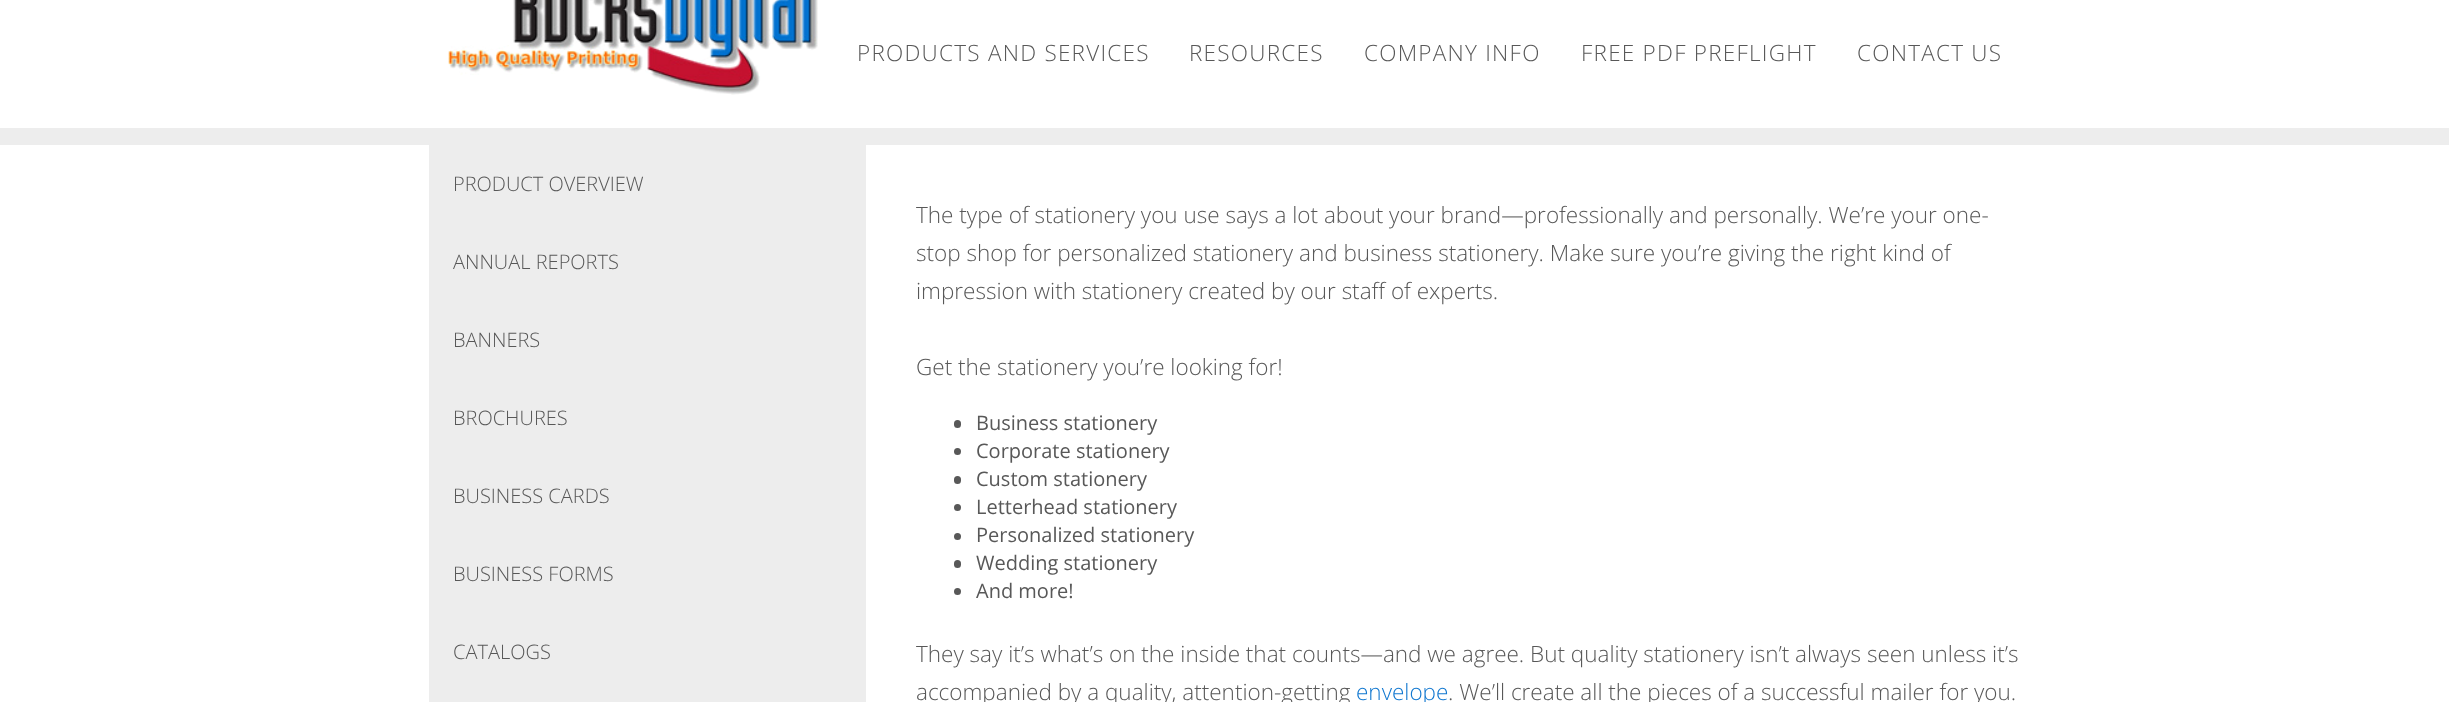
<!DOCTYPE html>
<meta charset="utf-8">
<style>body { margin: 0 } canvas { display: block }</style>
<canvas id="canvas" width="2449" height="702"></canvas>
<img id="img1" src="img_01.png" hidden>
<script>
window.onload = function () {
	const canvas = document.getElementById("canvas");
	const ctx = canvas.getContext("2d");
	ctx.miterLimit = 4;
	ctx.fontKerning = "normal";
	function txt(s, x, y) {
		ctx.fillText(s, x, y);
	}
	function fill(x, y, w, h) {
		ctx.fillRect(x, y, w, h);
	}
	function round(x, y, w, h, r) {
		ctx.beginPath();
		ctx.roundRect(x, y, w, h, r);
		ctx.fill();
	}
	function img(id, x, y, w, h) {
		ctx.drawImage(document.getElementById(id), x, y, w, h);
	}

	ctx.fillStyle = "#FFFFFF";
	fill(0, 0, 2449, 702);
	img("img1", 448, 0, 370, 95);
	ctx.fillStyle = "#EDEDED";
	fill(0, 128, 2449, 17);
	fill(429, 145, 437, 557);
	ctx.fillStyle = "#585858";
	round(954, 420, 7, 8, 3.5);
	ctx.beginPath();
	ctx.arc(957.5, 451.5, 3.5, 0, Math.PI * 2);
	ctx.fill();
	round(954, 476, 7, 8, 3.5);
	ctx.beginPath();
	ctx.arc(957.5, 507.5, 3.5, 0, Math.PI * 2);
	ctx.fill();
	ctx.beginPath();
	ctx.arc(957.5, 536.5, 3.5, 0, Math.PI * 2);
	ctx.fill();
	round(954, 560, 7, 8, 3.5);
	ctx.beginPath();
	ctx.arc(957.5, 591.5, 3.5, 0, Math.PI * 2);
	ctx.fill();
	ctx.letterSpacing = "1.25px";
	ctx.font = "300 22.5px Open Sans";
	txt("PRODUCTS AND SERVICES", 857, 61);
	txt("RESOURCES", 1189, 61);
	txt("COMPANY INFO", 1364, 61);
	txt("FREE PDF PREFLIGHT", 1581, 61);
	txt("CONTACT US", 1857, 61);
	ctx.letterSpacing = "0px";
	ctx.font = "300 20px Open Sans";
	txt("PRODUCT OVERVIEW", 453, 191);
	txt("ANNUAL REPORTS", 453, 269);
	txt("BANNERS", 453, 347);
	txt("BROCHURES", 453, 425);
	txt("BUSINESS CARDS", 453, 503);
	txt("BUSINESS FORMS", 453, 581);
	txt("CATALOGS", 453, 659);
	ctx.font = "300 22.5px Open Sans";
	txt("The type of stationery you use says a lot about your brand—professionally and personally. We’re your one-", 916, 223);
	txt("stop shop for personalized stationery and business stationery. Make sure you’re giving the right kind of", 916, 261);
	txt("impression with stationery created by our staff of experts.", 916, 299);
	txt("Get the stationery you’re looking for!", 916, 375);
	ctx.font = "20px Open Sans";
	txt("Business stationery", 976, 430);
	txt("Corporate stationery", 976, 458);
	txt("Custom stationery", 976, 486);
	txt("Letterhead stationery", 976, 514);
	txt("Personalized stationery", 976, 542);
	txt("Wedding stationery", 976, 570);
	txt("And more!", 976, 598);
	ctx.font = "300 22.5px Open Sans";
	txt("They say it’s what’s on the inside that counts—and we agree. But quality stationery isn’t always seen unless it’s", 916, 662);
	txt("accompanied by a quality, attention-getting", 916, 700);
	ctx.fillStyle = "#1278D0";
	txt("envelope", 1356, 700);
	ctx.fillStyle = "#585858";
	txt(". We’ll create all the pieces of a successful mailer for you.", 1448, 700);
};
</script>
